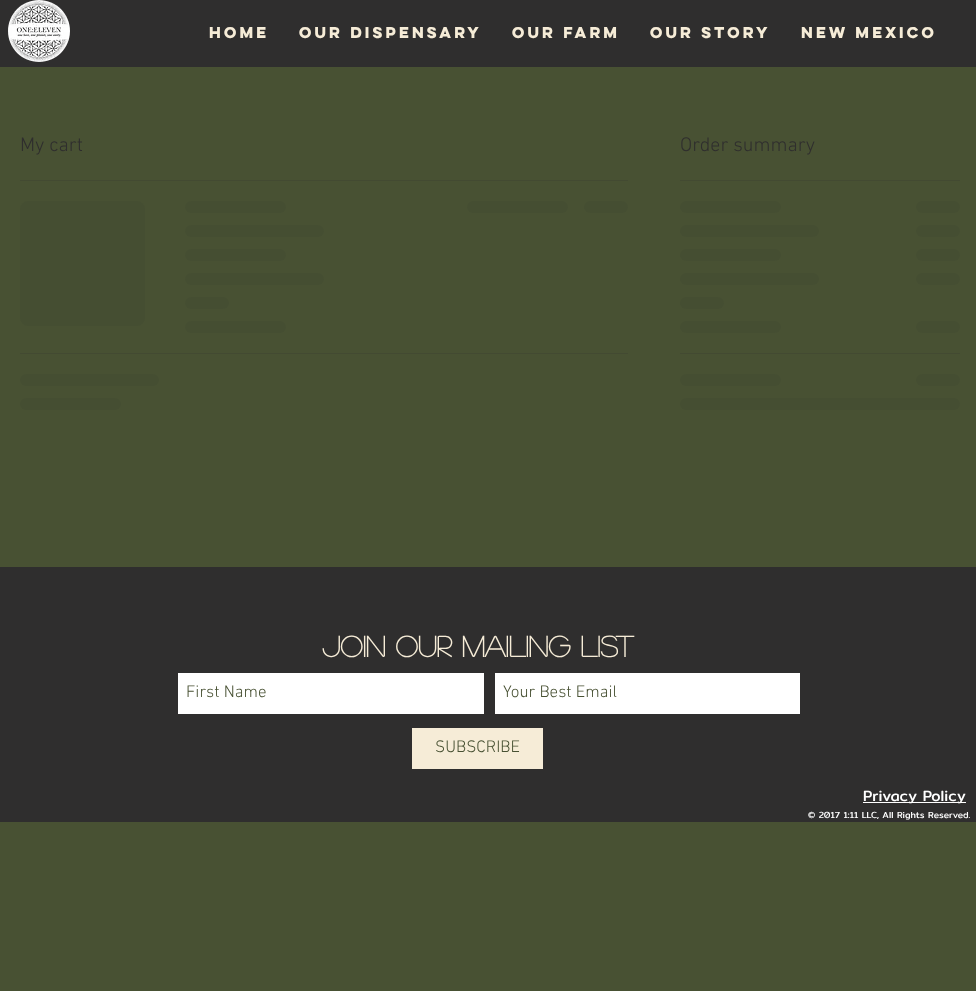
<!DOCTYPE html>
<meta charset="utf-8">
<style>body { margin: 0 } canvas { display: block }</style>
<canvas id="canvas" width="976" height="991"></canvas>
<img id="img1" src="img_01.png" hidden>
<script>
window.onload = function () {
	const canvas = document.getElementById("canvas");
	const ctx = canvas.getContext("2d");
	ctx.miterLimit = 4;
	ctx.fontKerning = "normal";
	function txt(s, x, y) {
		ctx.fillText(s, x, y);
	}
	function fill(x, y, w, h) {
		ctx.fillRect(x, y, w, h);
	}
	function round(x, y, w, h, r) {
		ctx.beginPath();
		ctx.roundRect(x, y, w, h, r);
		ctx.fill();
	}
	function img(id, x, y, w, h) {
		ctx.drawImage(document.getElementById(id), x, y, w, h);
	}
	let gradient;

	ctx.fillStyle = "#485133";
	fill(0, 0, 976, 991);
	ctx.fillStyle = "#2F2E2E";
	fill(0, 0, 976, 67);
	img("img1", 8, 0, 62, 62);
	ctx.fillStyle = "#434A32";
	fill(20, 180, 608, 1);
	gradient = ctx.createLinearGradient(20, 264, 520, 264);
	gradient.addColorStop(0.25, "#454E32");
	gradient.addColorStop(0.37, "#434A32");
	gradient.addColorStop(0.63, "#454E32");
	ctx.fillStyle = gradient;
	round(20, 201, 125, 125, 8);
	gradient = ctx.createLinearGradient(185, 207, 589, 207);
	gradient.addColorStop(0.25, "#454E32");
	gradient.addColorStop(0.37, "#434A32");
	gradient.addColorStop(0.63, "#454E32");
	ctx.fillStyle = gradient;
	round(185, 201, 101, 12, 6);
	gradient = ctx.createLinearGradient(185, 231, 741, 231);
	gradient.addColorStop(0.25, "#454E32");
	gradient.addColorStop(0.37, "#434A32");
	gradient.addColorStop(0.63, "#454E32");
	ctx.fillStyle = gradient;
	round(185, 225, 139, 12, 6);
	gradient = ctx.createLinearGradient(185, 255, 589, 255);
	gradient.addColorStop(0.25, "#454E32");
	gradient.addColorStop(0.37, "#434A32");
	gradient.addColorStop(0.63, "#454E32");
	ctx.fillStyle = gradient;
	round(185, 249, 101, 12, 6);
	gradient = ctx.createLinearGradient(185, 279, 741, 279);
	gradient.addColorStop(0.25, "#454E32");
	gradient.addColorStop(0.37, "#434A32");
	gradient.addColorStop(0.63, "#454E32");
	ctx.fillStyle = gradient;
	round(185, 273, 139, 12, 6);
	gradient = ctx.createLinearGradient(185, 303, 361, 303);
	gradient.addColorStop(0.25, "#454E32");
	gradient.addColorStop(0.37, "#434A32");
	gradient.addColorStop(0.63, "#454E32");
	ctx.fillStyle = gradient;
	round(185, 297, 44, 12, 6);
	gradient = ctx.createLinearGradient(185, 327, 589, 327);
	gradient.addColorStop(0.25, "#454E32");
	gradient.addColorStop(0.37, "#434A32");
	gradient.addColorStop(0.63, "#454E32");
	ctx.fillStyle = gradient;
	round(185, 321, 101, 12, 6);
	gradient = ctx.createLinearGradient(467, 207, 871, 207);
	gradient.addColorStop(0.25, "#454E32");
	gradient.addColorStop(0.37, "#434A32");
	gradient.addColorStop(0.63, "#454E32");
	ctx.fillStyle = gradient;
	round(467, 201, 101, 12, 6);
	gradient = ctx.createLinearGradient(584, 207, 760, 207);
	gradient.addColorStop(0.25, "#454E32");
	gradient.addColorStop(0.37, "#434A32");
	gradient.addColorStop(0.63, "#454E32");
	ctx.fillStyle = gradient;
	round(584, 201, 44, 12, 6);
	ctx.fillStyle = "#434A32";
	fill(20, 353, 608, 1);
	gradient = ctx.createLinearGradient(20, 380, 576, 380);
	gradient.addColorStop(0.25, "#454E32");
	gradient.addColorStop(0.37, "#434A32");
	gradient.addColorStop(0.63, "#454E32");
	ctx.fillStyle = gradient;
	round(20, 374, 139, 12, 6);
	gradient = ctx.createLinearGradient(20, 404, 424, 404);
	gradient.addColorStop(0.25, "#454E32");
	gradient.addColorStop(0.37, "#434A32");
	gradient.addColorStop(0.63, "#454E32");
	ctx.fillStyle = gradient;
	round(20, 398, 101, 12, 6);
	ctx.fillStyle = "#434A32";
	fill(680, 180, 280, 1);
	gradient = ctx.createLinearGradient(680, 207, 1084, 207);
	gradient.addColorStop(0.25, "#454E32");
	gradient.addColorStop(0.37, "#434A32");
	gradient.addColorStop(0.63, "#454E32");
	ctx.fillStyle = gradient;
	round(680, 201, 101, 12, 6);
	gradient = ctx.createLinearGradient(916, 207, 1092, 207);
	gradient.addColorStop(0.25, "#454E32");
	gradient.addColorStop(0.37, "#434A32");
	gradient.addColorStop(0.63, "#454E32");
	ctx.fillStyle = gradient;
	round(916, 201, 44, 12, 6);
	gradient = ctx.createLinearGradient(680, 231, 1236, 231);
	gradient.addColorStop(0.25, "#454E32");
	gradient.addColorStop(0.37, "#434A32");
	gradient.addColorStop(0.63, "#454E32");
	ctx.fillStyle = gradient;
	round(680, 225, 139, 12, 6);
	gradient = ctx.createLinearGradient(916, 231, 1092, 231);
	gradient.addColorStop(0.25, "#454E32");
	gradient.addColorStop(0.37, "#434A32");
	gradient.addColorStop(0.63, "#454E32");
	ctx.fillStyle = gradient;
	round(916, 225, 44, 12, 6);
	gradient = ctx.createLinearGradient(680, 255, 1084, 255);
	gradient.addColorStop(0.25, "#454E32");
	gradient.addColorStop(0.37, "#434A32");
	gradient.addColorStop(0.63, "#454E32");
	ctx.fillStyle = gradient;
	round(680, 249, 101, 12, 6);
	gradient = ctx.createLinearGradient(916, 255, 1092, 255);
	gradient.addColorStop(0.25, "#454E32");
	gradient.addColorStop(0.37, "#434A32");
	gradient.addColorStop(0.63, "#454E32");
	ctx.fillStyle = gradient;
	round(916, 249, 44, 12, 6);
	gradient = ctx.createLinearGradient(680, 279, 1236, 279);
	gradient.addColorStop(0.25, "#454E32");
	gradient.addColorStop(0.37, "#434A32");
	gradient.addColorStop(0.63, "#454E32");
	ctx.fillStyle = gradient;
	round(680, 273, 139, 12, 6);
	gradient = ctx.createLinearGradient(916, 279, 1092, 279);
	gradient.addColorStop(0.25, "#454E32");
	gradient.addColorStop(0.37, "#434A32");
	gradient.addColorStop(0.63, "#454E32");
	ctx.fillStyle = gradient;
	round(916, 273, 44, 12, 6);
	gradient = ctx.createLinearGradient(680, 303, 856, 303);
	gradient.addColorStop(0.25, "#454E32");
	gradient.addColorStop(0.37, "#434A32");
	gradient.addColorStop(0.63, "#454E32");
	ctx.fillStyle = gradient;
	round(680, 297, 44, 12, 6);
	gradient = ctx.createLinearGradient(680, 327, 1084, 327);
	gradient.addColorStop(0.25, "#454E32");
	gradient.addColorStop(0.37, "#434A32");
	gradient.addColorStop(0.63, "#454E32");
	ctx.fillStyle = gradient;
	round(680, 321, 101, 12, 6);
	gradient = ctx.createLinearGradient(916, 327, 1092, 327);
	gradient.addColorStop(0.25, "#454E32");
	gradient.addColorStop(0.37, "#434A32");
	gradient.addColorStop(0.63, "#454E32");
	ctx.fillStyle = gradient;
	round(916, 321, 44, 12, 6);
	ctx.fillStyle = "#434A32";
	fill(680, 353, 280, 1);
	gradient = ctx.createLinearGradient(680, 380, 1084, 380);
	gradient.addColorStop(0.25, "#454E32");
	gradient.addColorStop(0.37, "#434A32");
	gradient.addColorStop(0.63, "#454E32");
	ctx.fillStyle = gradient;
	round(680, 374, 101, 12, 6);
	gradient = ctx.createLinearGradient(916, 380, 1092, 380);
	gradient.addColorStop(0.25, "#454E32");
	gradient.addColorStop(0.37, "#434A32");
	gradient.addColorStop(0.63, "#454E32");
	ctx.fillStyle = gradient;
	round(916, 374, 44, 12, 6);
	gradient = ctx.createLinearGradient(680, 404, 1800, 404);
	gradient.addColorStop(0.25, "#454E32");
	gradient.addColorStop(0.37, "#434A32");
	gradient.addColorStop(0.63, "#454E32");
	ctx.fillStyle = gradient;
	round(680, 398, 280, 12, 6);
	ctx.fillStyle = "#2F2E2E";
	fill(0, 567, 976, 255);
	ctx.fillStyle = "#FFFFFF";
	fill(178, 673, 306, 41);
	fill(495, 673, 305, 41);
	ctx.fillStyle = "#F6ECD7";
	fill(412, 728, 131, 41);
	ctx.fillStyle = "#FFFFFF";
	fill(863, 802, 103, 1);
	ctx.font = "bold 14px 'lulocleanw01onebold'";
	ctx.fillStyle = "#F6ECD7";
	txt("Home", 209, 38);
	txt("Our Dispensary", 299, 38);
	txt("Our Farm", 512, 38);
	txt("Our Story", 650, 38);
	txt("New Mexico", 801, 38);
	ctx.font = "300 20px 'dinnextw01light'";
	ctx.fillStyle = "#2F2E2E";
	txt("My cart", 20, 151);
	txt("Order summary", 680, 151);
	ctx.font = "bold 29px 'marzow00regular'";
	ctx.fillStyle = "#F6ECD7";
	txt("join our mailing list", 322, 657);
	ctx.font = "300 17px 'dinnextw01light'";
	ctx.fillStyle = "#485133";
	txt("First Name", 186, 697);
	txt("Your Best Email", 503, 697);
	txt("SUBSCRIBE", 435, 752);
	ctx.font = "15px Mitr";
	ctx.fillStyle = "#FFFFFF";
	txt("Privacy Policy", 863, 801);
	ctx.font = "9px Mitr";
	txt("© 2017 1:11 LLC, All Rights Reserved.", 808, 818);
};
</script>
